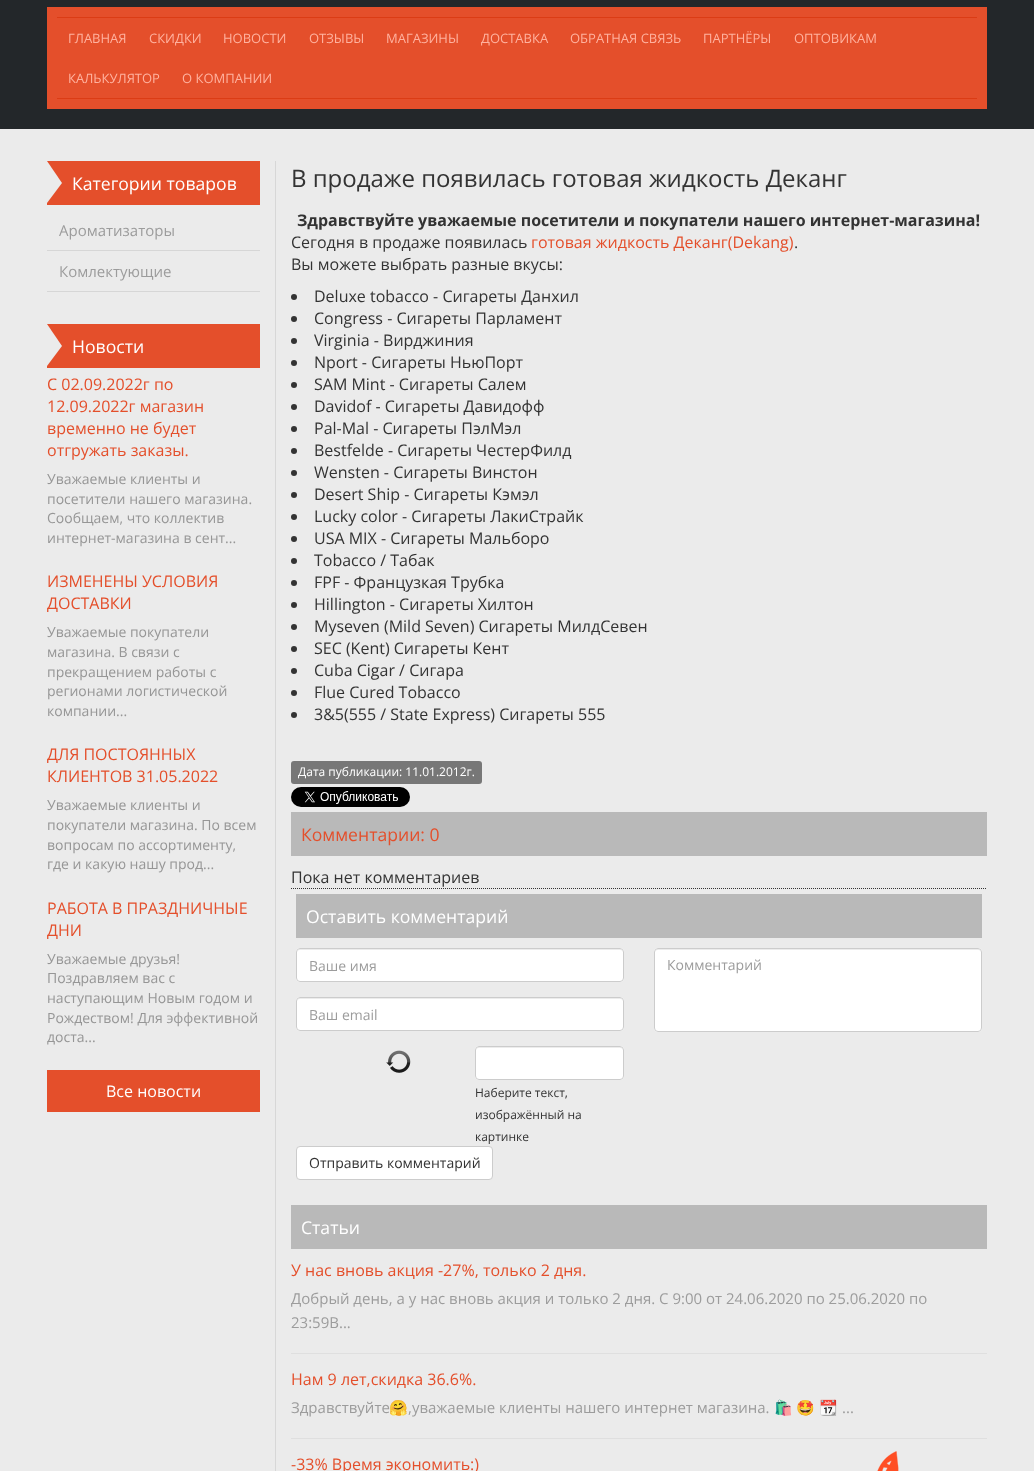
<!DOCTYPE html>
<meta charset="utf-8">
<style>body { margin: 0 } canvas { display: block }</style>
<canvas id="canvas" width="1034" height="1471"></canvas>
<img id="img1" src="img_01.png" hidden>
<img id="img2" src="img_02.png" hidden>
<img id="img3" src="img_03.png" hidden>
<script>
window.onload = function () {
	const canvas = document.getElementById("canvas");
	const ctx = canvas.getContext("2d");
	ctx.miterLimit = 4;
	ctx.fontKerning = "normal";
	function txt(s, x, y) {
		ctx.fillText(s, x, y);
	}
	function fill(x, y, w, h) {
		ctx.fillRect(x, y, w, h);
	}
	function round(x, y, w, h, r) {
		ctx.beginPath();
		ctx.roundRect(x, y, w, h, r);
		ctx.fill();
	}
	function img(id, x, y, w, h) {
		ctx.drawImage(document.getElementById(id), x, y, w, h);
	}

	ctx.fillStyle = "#EBEBEB";
	fill(0, 0, 1034, 1471);
	ctx.fillStyle = "#23272A";
	fill(0, 0, 1034, 129);
	ctx.fillStyle = "#E44F2B";
	fill(47, 7, 940, 102);
	ctx.fillStyle = "#DB3C15";
	fill(57, 17, 920, 1);
	fill(57, 98, 920, 1);
	img("img1", 877, 1451, 22, 20);
	ctx.fillStyle = "#E44F2B";
	fill(47, 161, 213, 44);
	ctx.fillStyle = "#EBEBEB";
	ctx.beginPath();
	ctx.moveTo(47, 203);
	ctx.lineTo(47, 161);
	ctx.lineTo(62, 183);
	ctx.closePath();
	ctx.fill();
	ctx.fillStyle = "#D6D6D6";
	fill(47, 250, 213, 1);
	fill(47, 291, 213, 1);
	ctx.fillStyle = "#E44F2B";
	fill(47, 324, 213, 44);
	ctx.fillStyle = "#EBEBEB";
	ctx.beginPath();
	ctx.moveTo(47, 366);
	ctx.lineTo(47, 324);
	ctx.lineTo(62, 346);
	ctx.closePath();
	ctx.fill();
	ctx.fillStyle = "#E44F2B";
	fill(47, 1070, 213, 42);
	ctx.fillStyle = "#D7D7D7";
	fill(275, 161, 1, 1310);
	ctx.fillStyle = "#333333";
	ctx.beginPath();
	ctx.arc(294, 297, 3, 0, Math.PI * 2);
	ctx.fill();
	ctx.beginPath();
	ctx.arc(294, 319, 3, 0, Math.PI * 2);
	ctx.fill();
	ctx.beginPath();
	ctx.arc(294, 341, 3, 0, Math.PI * 2);
	ctx.fill();
	ctx.beginPath();
	ctx.arc(294, 363, 3, 0, Math.PI * 2);
	ctx.fill();
	ctx.beginPath();
	ctx.arc(294, 385, 3, 0, Math.PI * 2);
	ctx.fill();
	ctx.beginPath();
	ctx.arc(294, 407, 3, 0, Math.PI * 2);
	ctx.fill();
	ctx.beginPath();
	ctx.arc(294, 429, 3, 0, Math.PI * 2);
	ctx.fill();
	ctx.beginPath();
	ctx.arc(294, 451, 3, 0, Math.PI * 2);
	ctx.fill();
	ctx.beginPath();
	ctx.arc(294, 473, 3, 0, Math.PI * 2);
	ctx.fill();
	ctx.beginPath();
	ctx.arc(294, 495, 3, 0, Math.PI * 2);
	ctx.fill();
	ctx.beginPath();
	ctx.arc(294, 517, 3, 0, Math.PI * 2);
	ctx.fill();
	ctx.beginPath();
	ctx.arc(294, 539, 3, 0, Math.PI * 2);
	ctx.fill();
	ctx.beginPath();
	ctx.arc(294, 561, 3, 0, Math.PI * 2);
	ctx.fill();
	ctx.beginPath();
	ctx.arc(294, 583, 3, 0, Math.PI * 2);
	ctx.fill();
	ctx.beginPath();
	ctx.arc(294, 605, 3, 0, Math.PI * 2);
	ctx.fill();
	ctx.beginPath();
	ctx.arc(294, 627, 3, 0, Math.PI * 2);
	ctx.fill();
	ctx.beginPath();
	ctx.arc(294, 649, 3, 0, Math.PI * 2);
	ctx.fill();
	ctx.beginPath();
	ctx.arc(294, 671, 3, 0, Math.PI * 2);
	ctx.fill();
	ctx.beginPath();
	ctx.arc(294, 693, 3, 0, Math.PI * 2);
	ctx.fill();
	ctx.beginPath();
	ctx.arc(294, 715, 3, 0, Math.PI * 2);
	ctx.fill();
	ctx.fillStyle = "#777777";
	round(291, 761, 191, 23, 3);
	img("img2", 291, 787, 119, 20);
	ctx.fillStyle = "#B9B9B9";
	fill(291, 812, 696, 44);
	ctx.beginPath();
	ctx.moveTo(291, 888.5);
	ctx.lineTo(987, 888.5);
	ctx.strokeStyle = "#333333";
	ctx.setLineDash([1, 1]);
	ctx.stroke();
	fill(296, 894, 686, 44);
	ctx.fillStyle = "#FFFFFF";
	round(296, 948, 328, 34, 4);
	ctx.fillStyle = "#ECECEC";
	ctx.beginPath();
	ctx.moveTo(300, 950);
	ctx.lineTo(620, 950);
	ctx.bezierCurveTo(622, 950, 623, 951, 623, 953);
	ctx.bezierCurveTo(623, 951, 622, 949, 620, 949);
	ctx.lineTo(300, 949);
	ctx.bezierCurveTo(298, 949, 297, 951, 297, 953);
	ctx.bezierCurveTo(297, 951, 298, 950, 300, 950);
	ctx.closePath();
	ctx.fill();
	ctx.beginPath();
	ctx.roundRect(296.5, 948.5, 327, 33, 3.5);
	ctx.strokeStyle = "#CCCCCC";
	ctx.setLineDash([]);
	ctx.stroke();
	ctx.fillStyle = "#FFFFFF";
	round(296, 997, 328, 34, 4);
	ctx.fillStyle = "#ECECEC";
	ctx.beginPath();
	ctx.moveTo(300, 999);
	ctx.lineTo(620, 999);
	ctx.bezierCurveTo(622, 999, 623, 1000, 623, 1002);
	ctx.bezierCurveTo(623, 1000, 622, 998, 620, 998);
	ctx.lineTo(300, 998);
	ctx.bezierCurveTo(298, 998, 297, 1000, 297, 1002);
	ctx.bezierCurveTo(297, 1000, 298, 999, 300, 999);
	ctx.closePath();
	ctx.fill();
	ctx.beginPath();
	ctx.roundRect(296.5, 997.5, 327, 33, 3.5);
	ctx.stroke();
	ctx.fillStyle = "#FFFFFF";
	round(654, 948, 328, 84, 4);
	ctx.fillStyle = "#ECECEC";
	ctx.beginPath();
	ctx.moveTo(658, 950);
	ctx.lineTo(978, 950);
	ctx.bezierCurveTo(980, 950, 981, 951, 981, 953);
	ctx.bezierCurveTo(981, 951, 980, 949, 978, 949);
	ctx.lineTo(658, 949);
	ctx.bezierCurveTo(656, 949, 655, 951, 655, 953);
	ctx.bezierCurveTo(655, 951, 656, 950, 658, 950);
	ctx.closePath();
	ctx.fill();
	ctx.beginPath();
	ctx.roundRect(654.5, 948.5, 327, 83, 3.5);
	ctx.stroke();
	img("img3", 386, 1050, 25, 23);
	ctx.fillStyle = "#FFFFFF";
	round(475, 1046, 149, 34, 4);
	ctx.fillStyle = "#ECECEC";
	ctx.beginPath();
	ctx.moveTo(479, 1048);
	ctx.lineTo(620, 1048);
	ctx.bezierCurveTo(622, 1048, 623, 1049, 623, 1051);
	ctx.bezierCurveTo(623, 1049, 623, 1048, 621, 1047);
	ctx.lineTo(502, 1047);
	ctx.bezierCurveTo(495, 1047, 476, 1042, 476, 1051);
	ctx.bezierCurveTo(476, 1049, 477, 1048, 479, 1048);
	ctx.closePath();
	ctx.fill();
	ctx.beginPath();
	ctx.roundRect(475.5, 1046.5, 148, 33, 3.5);
	ctx.stroke();
	ctx.fillStyle = "#FFFFFF";
	ctx.beginPath();
	ctx.roundRect(296.5, 1146.5, 196, 33, 3.5);
	ctx.fill();
	ctx.stroke();
	ctx.fillStyle = "#B9B9B9";
	fill(291, 1205, 696, 44);
	ctx.fillStyle = "#DFDFDF";
	fill(291, 1353, 696, 1);
	fill(291, 1438, 696, 1);
	ctx.font = "13px Open Sans";
	ctx.fillStyle = "#FFB29F";
	txt("ГЛАВНАЯ", 68, 43);
	txt("СКИДКИ", 149, 43);
	txt("НОВОСТИ", 223, 43);
	txt("ОТЗЫВЫ", 309, 43);
	txt("МАГАЗИНЫ", 386, 43);
	txt("ДОСТАВКА", 481, 43);
	txt("ОБРАТНАЯ СВЯЗЬ", 570, 43);
	txt("ПАРТНЁРЫ", 703, 43);
	txt("ОПТОВИКАМ", 794, 43);
	txt("КАЛЬКУЛЯТОР", 68, 83);
	txt("О КОМПАНИИ", 182, 83);
	ctx.font = "17.6px Open Sans";
	ctx.fillStyle = "#FFFFFF";
	txt("Категории товаров", 72, 190);
	ctx.font = "15px Open Sans";
	ctx.fillStyle = "#9C9C9C";
	txt("Ароматизаторы", 59, 236);
	txt("Комлектующие", 59, 277);
	ctx.font = "17.6px Open Sans";
	ctx.fillStyle = "#FFFFFF";
	txt("Новости", 72, 353);
	ctx.font = "16px Open Sans";
	ctx.fillStyle = "#E44F2B";
	txt("С 02.09.2022г по", 47, 390);
	txt("12.09.2022г магазин", 47, 412);
	txt("временно не будет", 47, 434);
	txt("отгружать заказы.", 47, 456);
	ctx.font = "14px Open Sans";
	ctx.fillStyle = "#969696";
	txt("Уважаемые клиенты и", 47, 484);
	txt("посетители нашего магазина.", 47, 504);
	txt("Сообщаем, что коллектив", 47, 523);
	txt("интернет-магазина в сент...", 47, 543);
	ctx.font = "16px Open Sans";
	ctx.fillStyle = "#E44F2B";
	txt("ИЗМЕНЕНЫ УСЛОВИЯ", 47, 587);
	txt("ДОСТАВКИ", 47, 609);
	ctx.font = "14px Open Sans";
	ctx.fillStyle = "#969696";
	txt("Уважаемые покупатели", 47, 637);
	txt("магазина. В связи с", 47, 657);
	txt("прекращением работы с", 47, 677);
	txt("регионами логистической", 47, 696);
	txt("компании...", 47, 716);
	ctx.font = "16px Open Sans";
	ctx.fillStyle = "#E44F2B";
	txt("ДЛЯ ПОСТОЯННЫХ", 47, 760);
	txt("КЛИЕНТОВ 31.05.2022", 47, 782);
	ctx.font = "14px Open Sans";
	ctx.fillStyle = "#969696";
	txt("Уважаемые клиенты и", 47, 810);
	txt("покупатели магазина. По всем", 47, 830);
	txt("вопросам по ассортименту,", 47, 850);
	txt("где и какую нашу прод...", 47, 869);
	ctx.font = "16px Open Sans";
	ctx.fillStyle = "#E44F2B";
	txt("РАБОТА В ПРАЗДНИЧНЫЕ", 47, 914);
	txt("ДНИ", 47, 936);
	ctx.font = "14px Open Sans";
	ctx.fillStyle = "#969696";
	txt("Уважаемые друзья!", 47, 964);
	txt("Поздравляем вас с", 47, 983);
	txt("наступающим Новым годом и", 47, 1003);
	txt("Рождеством! Для эффективной", 47, 1023);
	txt("доста...", 47, 1042);
	ctx.font = "16px Open Sans";
	ctx.fillStyle = "#FFFFFF";
	txt("Все новости", 106, 1097);
	ctx.font = "24px Open Sans";
	ctx.fillStyle = "#333333";
	txt("В продаже появилась готовая жидкость Деканг", 291, 187);
	ctx.font = "bold 16px Open Sans";
	txt("Здравствуйте уважаемые посетители и покупатели нашего интернет-магазина!", 297, 226);
	ctx.font = "16px Open Sans";
	txt("Сегодня в продаже появилась", 291, 248);
	ctx.fillStyle = "#E44F2B";
	txt("готовая жидкость Деканг(Dekang)", 531, 248);
	ctx.fillStyle = "#333333";
	txt(".", 794, 248);
	txt("Вы можете выбрать разные вкусы:", 291, 270);
	txt("Deluxe tobacco - Сигареты Данхил", 314, 302);
	txt("Congress - Сигареты Парламент", 314, 324);
	txt("Virginia - Вирджиния", 314, 346);
	txt("Nport - Сигареты НьюПорт", 314, 368);
	txt("SAM Mint - Сигареты Салем", 314, 390);
	txt("Davidof - Сигареты Давидофф", 314, 412);
	txt("Pal-Mal - Сигареты ПэлМэл", 314, 434);
	txt("Bestfelde - Сигареты ЧестерФилд", 314, 456);
	txt("Wensten - Сигареты Винстон", 314, 478);
	txt("Desert Ship - Сигареты Кэмэл", 314, 500);
	txt("Lucky color - Сигареты ЛакиСтрайк", 314, 522);
	txt("USA MIX - Сигареты Мальборо", 314, 544);
	txt("Tobacco / Табак", 314, 566);
	txt("FPF - Французкая Трубка", 314, 588);
	txt("Hillington - Сигареты Хилтон", 314, 610);
	txt("Myseven (Mild Seven) Сигареты МилдСевен", 314, 632);
	txt("SEC (Kent) Сигареты Кент", 314, 654);
	txt("Cuba Cigar / Сигара", 314, 676);
	txt("Flue Cured Tobacco", 314, 698);
	txt("3&5(555 / State Express) Сигареты 555", 314, 720);
	ctx.font = "12px Open Sans";
	ctx.fillStyle = "#FFFFFF";
	txt("Дата публикации: 11.01.2012г.", 298, 776);
	ctx.font = "17.6px Open Sans";
	ctx.fillStyle = "#E44F2B";
	txt("Комментарии: 0", 301, 841);
	ctx.font = "16px Open Sans";
	ctx.fillStyle = "#333333";
	txt("Пока нет комментариев", 291, 883);
	ctx.font = "17.6px Open Sans";
	ctx.fillStyle = "#FFFFFF";
	txt("Оставить комментарий", 306, 923);
	ctx.font = "14px Open Sans";
	ctx.fillStyle = "#9C9C9C";
	txt("Ваше имя", 309, 971);
	txt("Ваш email", 309, 1020);
	txt("Комментарий", 667, 970);
	ctx.font = "12px Open Sans";
	ctx.fillStyle = "#333333";
	txt("Наберите текст,", 475, 1097);
	txt("изображённый на", 475, 1119);
	txt("картинке", 475, 1141);
	ctx.font = "14px Open Sans";
	txt("Отправить комментарий", 309, 1168);
	ctx.font = "17.6px Open Sans";
	ctx.fillStyle = "#FFFFFF";
	txt("Статьи", 301, 1234);
	ctx.font = "16px Open Sans";
	ctx.fillStyle = "#E44F2B";
	txt("У нас вновь акция -27%, только 2 дня.", 291, 1276);
	ctx.font = "15px Open Sans";
	ctx.fillStyle = "#9C9C9C";
	txt("Добрый день, а у нас вновь акция и только 2 дня. С 9:00 от 24.06.2020 по 25.06.2020 по", 291, 1304);
	txt("23:59В...", 291, 1328);
	ctx.font = "16px Open Sans";
	ctx.fillStyle = "#E44F2B";
	txt("Нам 9 лет,скидка 36.6%.", 291, 1385);
	ctx.font = "15px Open Sans";
	ctx.fillStyle = "#9C9C9C";
	txt("Здравствуйте", 291, 1413);
	ctx.font = "15px Noto Color Emoji";
	txt("🤗", 389, 1413);
	ctx.font = "15px Open Sans";
	txt(",уважаемые клиенты нашего интернет магазина.", 408, 1413);
	ctx.font = "15px Noto Color Emoji";
	txt("🛍", 774, 1413);
	txt("🤩", 796, 1413);
	txt("📆", 819, 1413);
	ctx.font = "15px Open Sans";
	txt("...", 842, 1413);
	ctx.font = "16px Open Sans";
	ctx.fillStyle = "#E44F2B";
	txt("-33% Время экономить:)", 291, 1470);
};
</script>
